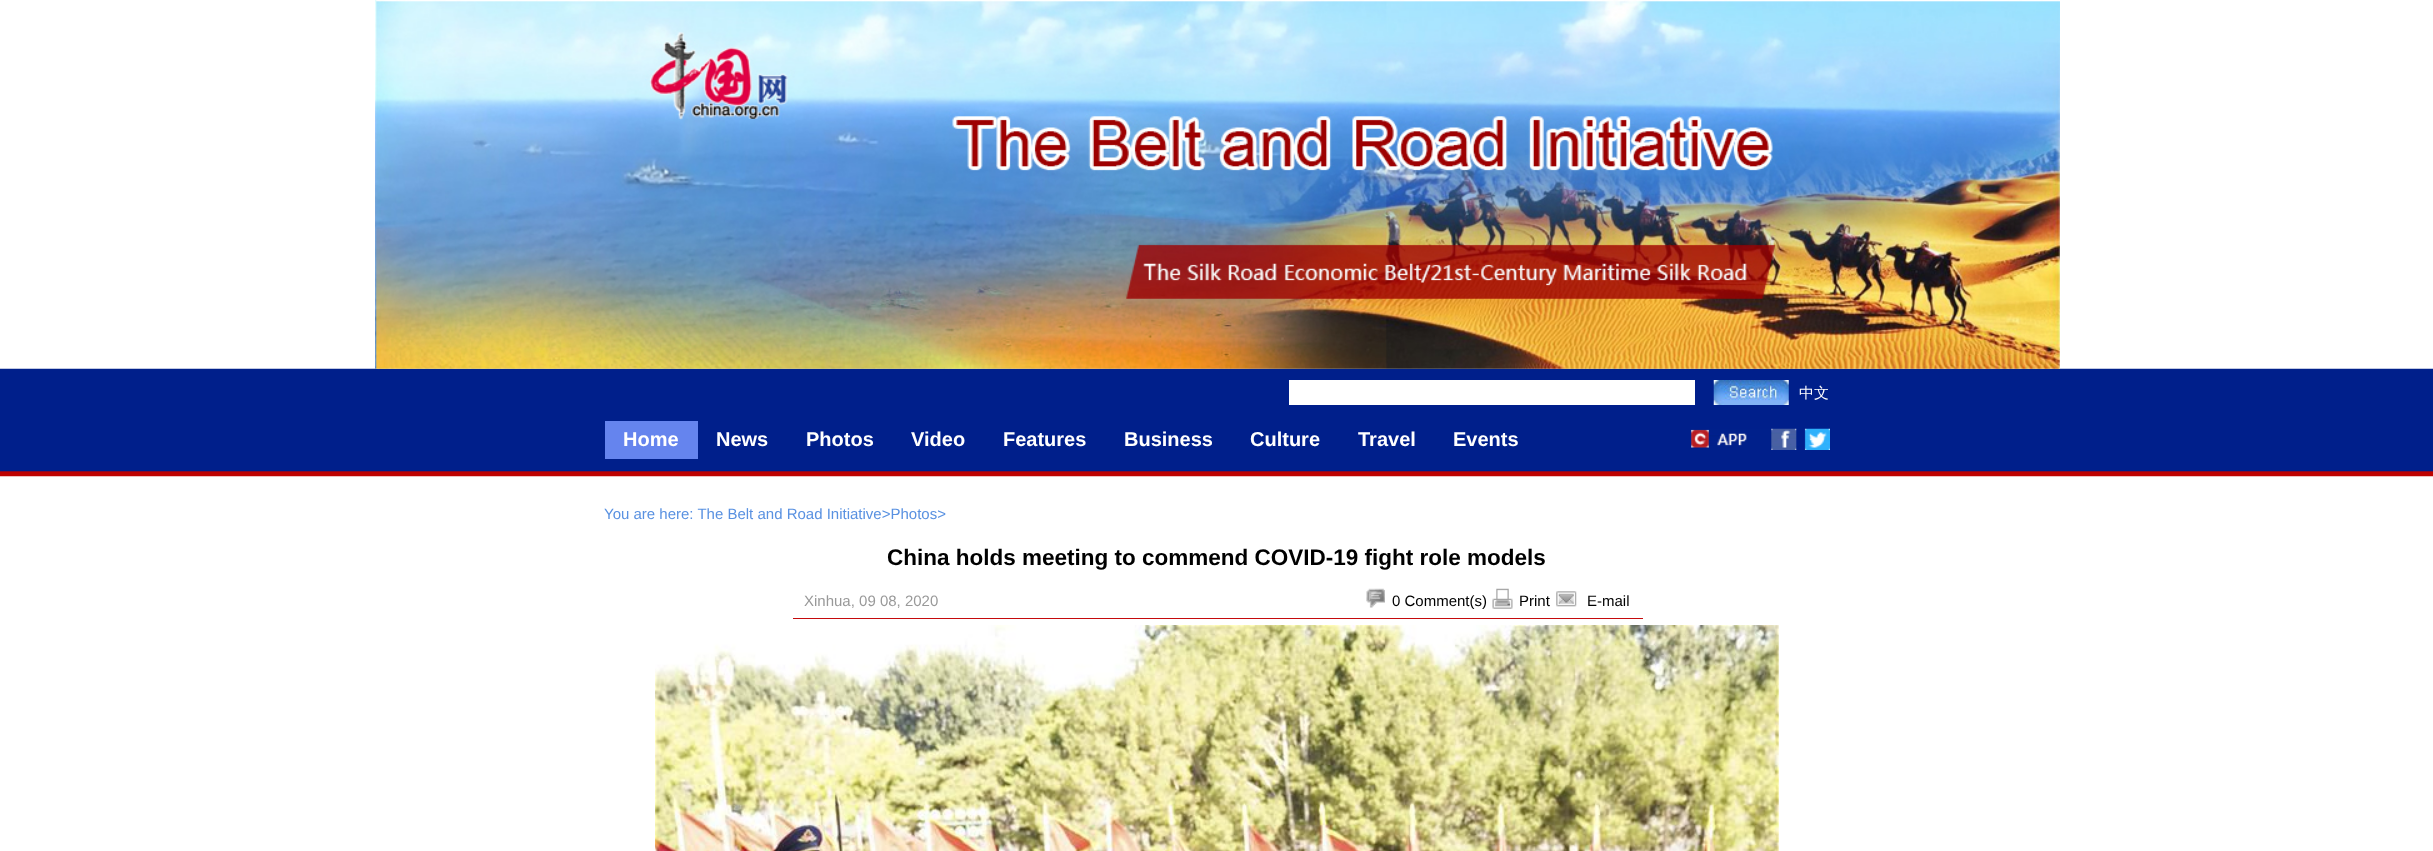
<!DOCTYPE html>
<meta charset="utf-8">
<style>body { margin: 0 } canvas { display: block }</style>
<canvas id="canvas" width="2433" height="851"></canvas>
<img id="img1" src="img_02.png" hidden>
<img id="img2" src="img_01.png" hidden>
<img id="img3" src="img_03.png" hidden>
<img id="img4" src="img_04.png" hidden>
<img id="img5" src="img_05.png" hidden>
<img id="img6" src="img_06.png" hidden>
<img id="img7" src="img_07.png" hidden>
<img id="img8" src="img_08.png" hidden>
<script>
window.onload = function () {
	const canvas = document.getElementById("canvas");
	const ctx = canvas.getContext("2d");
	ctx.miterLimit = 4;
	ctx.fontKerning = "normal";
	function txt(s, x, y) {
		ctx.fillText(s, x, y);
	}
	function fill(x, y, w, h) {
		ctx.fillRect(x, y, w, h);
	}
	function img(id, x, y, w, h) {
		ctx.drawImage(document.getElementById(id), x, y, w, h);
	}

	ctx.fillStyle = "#FFFFFF";
	fill(0, 0, 2433, 851);
	img("img1", 0, 368, 2433, 109);
	img("img2", 375, 0, 1685, 369);
	fill(1289, 380, 406, 25);
	img("img3", 1713, 380, 76, 25);
	ctx.fillStyle = "#6584EE";
	fill(605, 421, 93, 38);
	img("img4", 1691, 428, 139, 22);
	ctx.fillStyle = "#C50A0C";
	fill(793, 618, 850, 1);
	img("img5", 1366, 588, 19, 20);
	img("img6", 1492, 588, 21, 21);
	img("img7", 1556, 591, 21, 16);
	img("img8", 655, 625, 1124, 226);
	ctx.font = "500 15px WenQuanYi Zen Hei";
	ctx.fillStyle = "#FFFFFF";
	txt("中文", 1799, 398);
	ctx.font = "bold 20px Liberation Sans";
	txt("Home", 623, 446);
	txt("News", 716, 446);
	txt("Photos", 806, 446);
	txt("Video", 911, 446);
	txt("Features", 1003, 446);
	txt("Business", 1124, 446);
	txt("Culture", 1250, 446);
	txt("Travel", 1358, 446);
	txt("Events", 1453, 446);
	ctx.font = "15px Liberation Sans";
	ctx.fillStyle = "#5991E1";
	txt("You are here: The Belt and Road Initiative>Photos>", 604, 519);
	ctx.font = "bold 22.5px Liberation Sans";
	ctx.fillStyle = "#000000";
	txt("China holds meeting to commend COVID-19 fight role models", 887, 565);
	ctx.font = "15px Liberation Sans";
	ctx.fillStyle = "#999999";
	txt("Xinhua, 09 08, 2020", 804, 606);
	ctx.fillStyle = "#000000";
	txt("0 Comment(s)", 1392, 606);
	txt("Print", 1519, 606);
	txt("E-mail", 1587, 606);
};
</script>
